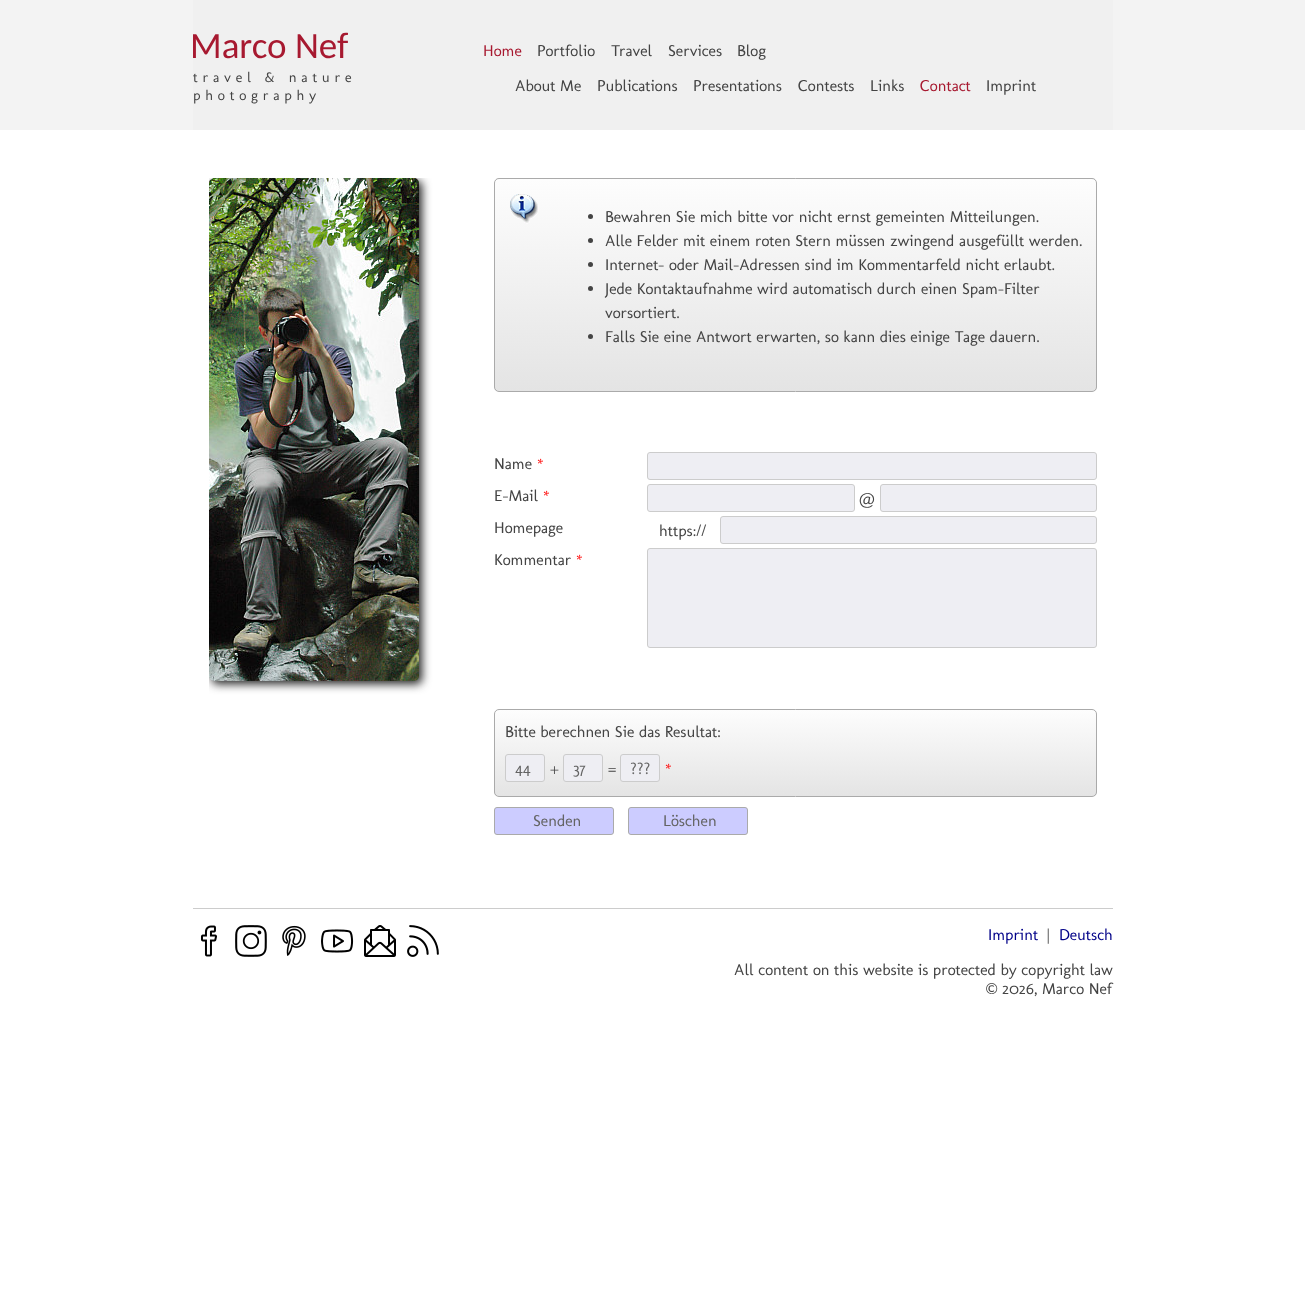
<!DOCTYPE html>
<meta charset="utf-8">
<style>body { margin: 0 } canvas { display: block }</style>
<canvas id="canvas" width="1305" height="1305"></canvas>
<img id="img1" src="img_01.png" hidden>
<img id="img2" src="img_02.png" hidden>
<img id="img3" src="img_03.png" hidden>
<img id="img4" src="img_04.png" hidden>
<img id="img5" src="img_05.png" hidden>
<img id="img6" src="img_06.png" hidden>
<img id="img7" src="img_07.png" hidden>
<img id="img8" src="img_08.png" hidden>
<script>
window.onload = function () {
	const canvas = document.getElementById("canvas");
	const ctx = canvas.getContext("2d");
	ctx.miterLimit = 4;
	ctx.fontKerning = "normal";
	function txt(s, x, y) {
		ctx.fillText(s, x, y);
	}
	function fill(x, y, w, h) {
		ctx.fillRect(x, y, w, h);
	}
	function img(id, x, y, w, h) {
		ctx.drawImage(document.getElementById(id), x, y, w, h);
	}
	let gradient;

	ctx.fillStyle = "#FFFFFF";
	fill(0, 0, 1305, 1305);
	ctx.fillStyle = "#F3F3F3";
	fill(0, 0, 1305, 130);
	ctx.fillStyle = "#F0F0F0";
	fill(193, 0, 920, 130);
	ctx.save();
	ctx.beginPath();
	ctx.rect(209, 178, 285, 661);
	ctx.clip();
	ctx.fillStyle = "#222222";
	ctx.filter = "blur(5px)";
	ctx.beginPath();
	ctx.roundRect(212, 181, 210, 503, 5);
	ctx.fill();
	ctx.filter = "none";
	ctx.restore();
	img("img1", 209, 178, 210, 503);
	img("img2", 494, 178, 603, 213);
	ctx.beginPath();
	ctx.roundRect(494.5, 178.5, 602, 213, 4.5);
	ctx.strokeStyle = "#AAAAAA";
	ctx.stroke();
	ctx.fillStyle = "#444444";
	ctx.beginPath();
	ctx.arc(590.5, 216.5, 2.5, 0, Math.PI * 2);
	ctx.fill();
	ctx.beginPath();
	ctx.arc(590.5, 240.5, 2.5, 0, Math.PI * 2);
	ctx.fill();
	ctx.beginPath();
	ctx.arc(590.5, 264.5, 2.5, 0, Math.PI * 2);
	ctx.fill();
	ctx.beginPath();
	ctx.arc(590.5, 288.5, 2.5, 0, Math.PI * 2);
	ctx.fill();
	ctx.beginPath();
	ctx.arc(590.5, 336.5, 2.5, 0, Math.PI * 2);
	ctx.fill();
	ctx.fillStyle = "#EEEEF3";
	ctx.beginPath();
	ctx.roundRect(647.5, 452.5, 449, 27, 2.5);
	ctx.fill();
	ctx.strokeStyle = "#CCCCCC";
	ctx.stroke();
	ctx.beginPath();
	ctx.roundRect(647.5, 484.5, 207, 27, 2.5);
	ctx.fill();
	ctx.stroke();
	ctx.beginPath();
	ctx.roundRect(880.5, 484.5, 216, 27, 2.5);
	ctx.fill();
	ctx.stroke();
	ctx.beginPath();
	ctx.roundRect(720.5, 516.5, 376, 27, 2.5);
	ctx.fill();
	ctx.stroke();
	ctx.beginPath();
	ctx.roundRect(647.5, 548.5, 449, 99, 2.5);
	ctx.fill();
	ctx.stroke();
	ctx.save();
	ctx.beginPath();
	ctx.roundRect(494, 709, 603, 88, 5);
	ctx.clip();
	gradient = ctx.createLinearGradient(796, 710, 796, 796);
	gradient.addColorStop(0, "#FDFDFD");
	gradient.addColorStop(1, "#E4E4E4");
	ctx.fillStyle = gradient;
	fill(494, 710, 603, 86);
	ctx.restore();
	ctx.beginPath();
	ctx.roundRect(494.5, 709.5, 602, 87, 4.5);
	ctx.strokeStyle = "#AAAAAA";
	ctx.stroke();
	ctx.beginPath();
	ctx.roundRect(505.5, 754.5, 39, 27, 2.5);
	ctx.fill();
	ctx.strokeStyle = "#CCCCCC";
	ctx.stroke();
	ctx.beginPath();
	ctx.roundRect(563.5, 754.5, 39, 27, 2.5);
	ctx.fill();
	ctx.stroke();
	ctx.beginPath();
	ctx.roundRect(620.5, 754.5, 39, 27, 2.5);
	ctx.fill();
	ctx.stroke();
	ctx.fillStyle = "#CCCCFF";
	ctx.beginPath();
	ctx.roundRect(494.5, 807.5, 119, 27, 2.5);
	ctx.fill();
	ctx.strokeStyle = "#AAAAAA";
	ctx.stroke();
	ctx.beginPath();
	ctx.roundRect(628.5, 807.5, 119, 27, 2.5);
	ctx.fill();
	ctx.stroke();
	img("img3", 200, 925, 17, 32);
	img("img4", 235, 925, 32, 32);
	img("img5", 282, 925, 24, 31);
	img("img6", 321, 929, 33, 24);
	img("img7", 364, 925, 32, 32);
	img("img8", 407, 925, 32, 32);
	ctx.fillStyle = "#CCCCCC";
	fill(193, 908, 920, 1);
	ctx.font = "37px Carlito";
	ctx.fillStyle = "#A71930";
	txt("Marco Nef", 190, 58);
	ctx.letterSpacing = "4.75px";
	ctx.font = "14.4px Molengo";
	ctx.fillStyle = "#444444";
	txt("travel & nature", 193, 82);
	txt("photography", 193, 100);
	ctx.letterSpacing = "0px";
	ctx.font = "16px Molengo";
	ctx.fillStyle = "#A71930";
	txt("Home", 483, 56);
	ctx.fillStyle = "#444444";
	txt("Portfolio", 537, 56);
	txt("Travel", 611, 56);
	txt("Services", 668, 56);
	txt("Blog", 737, 56);
	txt("About Me", 515, 91);
	txt("Publications", 597, 91);
	txt("Presentations", 693, 91);
	txt("Contests", 798, 91);
	txt("Links", 870, 91);
	ctx.fillStyle = "#A71930";
	txt("Contact", 920, 91);
	ctx.fillStyle = "#444444";
	txt("Imprint", 986, 91);
	txt("Bewahren Sie mich bitte vor nicht ernst gemeinten Mitteilungen.", 605, 222);
	txt("Alle Felder mit einem roten Stern müssen zwingend ausgefüllt werden.", 605, 246);
	txt("Internet- oder Mail-Adressen sind im Kommentarfeld nicht erlaubt.", 605, 270);
	txt("Jede Kontaktaufnahme wird automatisch durch einen Spam-Filter", 605, 294);
	txt("vorsortiert.", 605, 318);
	txt("Falls Sie eine Antwort erwarten, so kann dies einige Tage dauern.", 605, 342);
	txt("Name", 494, 469);
	ctx.fillStyle = "#FF0000";
	txt("*", 537, 469);
	ctx.fillStyle = "#444444";
	txt("E-Mail", 494, 501);
	ctx.fillStyle = "#FF0000";
	txt("*", 543, 501);
	ctx.fillStyle = "#444444";
	txt("@", 859, 504);
	txt("Homepage", 494, 533);
	txt("https://", 659, 536);
	txt("Kommentar", 494, 565);
	ctx.fillStyle = "#FF0000";
	txt("*", 576, 565);
	ctx.fillStyle = "#444444";
	txt("Bitte berechnen Sie das Resultat:", 505, 737);
	ctx.fillStyle = "#646464";
	txt("44", 515, 774);
	ctx.fillStyle = "#444444";
	txt("+", 550, 774);
	ctx.fillStyle = "#646464";
	txt("37", 573, 774);
	ctx.fillStyle = "#444444";
	txt("=", 608, 774);
	ctx.fillStyle = "#646464";
	txt("???", 630, 774);
	ctx.fillStyle = "#FF0000";
	txt("*", 665, 774);
	ctx.fillStyle = "#646464";
	txt("Senden", 533, 826);
	txt("Löschen", 663, 826);
	ctx.fillStyle = "#000088";
	txt("Imprint", 988, 940);
	ctx.fillStyle = "#444444";
	txt("|", 1047, 940);
	ctx.fillStyle = "#000088";
	txt("Deutsch", 1059, 940);
	ctx.fillStyle = "#444444";
	txt("All content on this website is protected by copyright law", 734, 975);
	ctx.font = "16px Carlito";
	txt("©", 985, 994);
	ctx.font = "16px Molengo";
	txt("2026, Marco Nef", 1002, 994);
};
</script>
